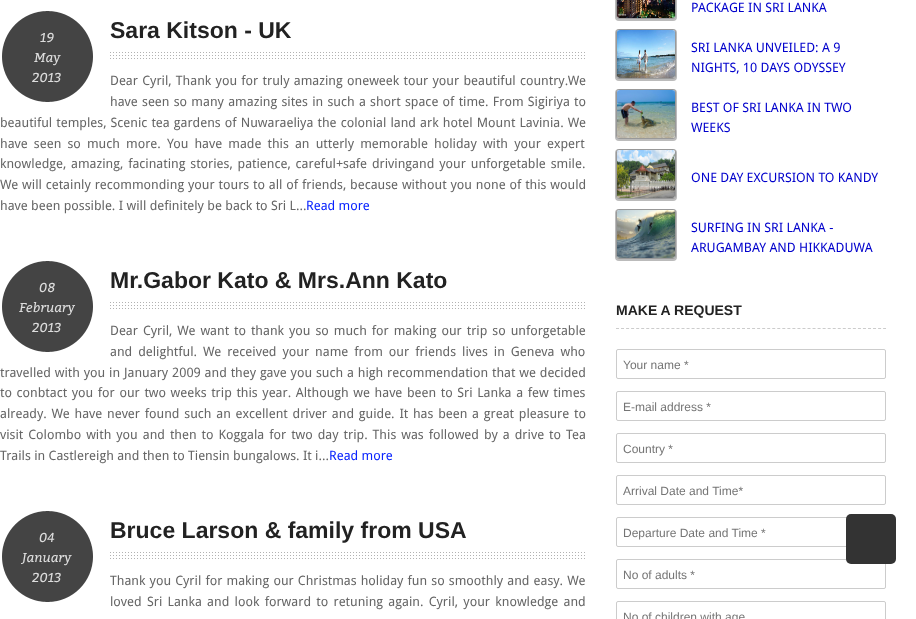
<!DOCTYPE html>
<meta charset="utf-8">
<style>body { margin: 0 } canvas { display: block }</style>
<canvas id="canvas" width="916" height="619"></canvas>
<img id="img1" src="img_01.png" hidden>
<img id="img2" src="img_02.png" hidden>
<img id="img3" src="img_03.png" hidden>
<img id="img4" src="img_04.png" hidden>
<img id="img5" src="img_05.png" hidden>
<img id="img6" src="img_06.png" hidden>
<img id="img7" src="img_07.png" hidden>
<script>
window.onload = function () {
	const canvas = document.getElementById("canvas");
	const ctx = canvas.getContext("2d");
	ctx.miterLimit = 4;
	ctx.fontKerning = "normal";
	function txt(s, x, y) {
		ctx.fillText(s, x, y);
	}
	function fill(x, y, w, h) {
		ctx.fillRect(x, y, w, h);
	}
	function round(x, y, w, h, r) {
		ctx.beginPath();
		ctx.roundRect(x, y, w, h, r);
		ctx.fill();
	}
	function img(id, x, y, w, h) {
		ctx.drawImage(document.getElementById(id), x, y, w, h);
	}

	ctx.fillStyle = "#FFFFFF";
	fill(0, 0, 916, 619);
	img("img1", 2, 11, 91, 91);
	img("img2", 110, 52, 475, 7);
	img("img1", 2, 261, 91, 91);
	img("img2", 110, 302, 475, 7);
	img("img1", 2, 511, 91, 91);
	img("img2", 110, 552, 475, 7);
	ctx.fillStyle = "#BBBBBB";
	ctx.filter = "blur(0.5px)";
	ctx.beginPath();
	ctx.roundRect(615, -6, 62, 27, 4);
	ctx.fill();
	ctx.filter = "none";
	ctx.fillStyle = "#FFFFFF";
	ctx.beginPath();
	ctx.roundRect(616.5, -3.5, 59, 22, 2.5);
	ctx.fill();
	ctx.strokeStyle = "#999999";
	ctx.stroke();
	img("img3", 617, 0, 58, 18);
	ctx.fillStyle = "#BBBBBB";
	ctx.filter = "blur(0.5px)";
	ctx.beginPath();
	ctx.roundRect(615, 29, 62, 52, 4);
	ctx.fill();
	ctx.filter = "none";
	ctx.fillStyle = "#FFFFFF";
	ctx.beginPath();
	ctx.roundRect(616.5, 29.5, 59, 49, 2.5);
	ctx.fill();
	ctx.stroke();
	img("img4", 617, 30, 58, 48);
	ctx.fillStyle = "#BBBBBB";
	ctx.filter = "blur(0.5px)";
	ctx.beginPath();
	ctx.roundRect(615, 89, 62, 52, 4);
	ctx.fill();
	ctx.filter = "none";
	ctx.fillStyle = "#FFFFFF";
	ctx.beginPath();
	ctx.roundRect(616.5, 89.5, 59, 49, 2.5);
	ctx.fill();
	ctx.stroke();
	img("img5", 617, 90, 58, 48);
	ctx.fillStyle = "#BBBBBB";
	ctx.filter = "blur(0.5px)";
	ctx.beginPath();
	ctx.roundRect(615, 149, 62, 52, 4);
	ctx.fill();
	ctx.filter = "none";
	ctx.fillStyle = "#FFFFFF";
	ctx.beginPath();
	ctx.roundRect(616.5, 149.5, 59, 49, 2.5);
	ctx.fill();
	ctx.stroke();
	img("img6", 617, 150, 58, 48);
	ctx.fillStyle = "#BBBBBB";
	ctx.filter = "blur(0.5px)";
	ctx.beginPath();
	ctx.roundRect(615, 209, 62, 52, 4);
	ctx.fill();
	ctx.filter = "none";
	ctx.fillStyle = "#FFFFFF";
	ctx.beginPath();
	ctx.roundRect(616.5, 209.5, 59, 49, 2.5);
	ctx.fill();
	ctx.stroke();
	img("img7", 617, 210, 58, 48);
	ctx.beginPath();
	ctx.moveTo(616, 328.5);
	ctx.lineTo(886, 328.5);
	ctx.strokeStyle = "#CCCCCC";
	ctx.setLineDash([3, 2.04]);
	ctx.stroke();
	ctx.beginPath();
	ctx.roundRect(616.5, 349.5, 269, 29, 1.5);
	ctx.setLineDash([]);
	ctx.stroke();
	ctx.beginPath();
	ctx.roundRect(616.5, 391.5, 269, 29, 1.5);
	ctx.stroke();
	ctx.beginPath();
	ctx.roundRect(616.5, 433.5, 269, 29, 1.5);
	ctx.stroke();
	ctx.beginPath();
	ctx.roundRect(616.5, 475.5, 269, 29, 1.5);
	ctx.stroke();
	ctx.beginPath();
	ctx.roundRect(616.5, 517.5, 269, 29, 1.5);
	ctx.stroke();
	ctx.beginPath();
	ctx.roundRect(616.5, 559.5, 269, 29, 1.5);
	ctx.stroke();
	ctx.beginPath();
	ctx.roundRect(616.5, 601.5, 269, 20, 1.5);
	ctx.stroke();
	ctx.fillStyle = "#333333";
	round(846, 514, 50, 50, 5);
	ctx.font = "bold 23px Liberation Sans";
	ctx.fillStyle = "#222222";
	txt("Sara Kitson - UK", 110, 38);
	ctx.font = "italic 13px Bitter";
	ctx.fillStyle = "#DDDDDD";
	txt("19", 40, 42);
	txt("May", 34, 62);
	txt("2013", 32, 82);
	ctx.wordSpacing = "0.9px";
	ctx.font = "13px Droid Sans";
	ctx.fillStyle = "#666666";
	txt("Dear Cyril, Thank you for truly amazing oneweek tour your beautiful country.We", 110, 85);
	txt("have seen so many amazing sites in such a short space of time. From Sigiriya to", 110, 106);
	ctx.wordSpacing = "0.75px";
	txt("beautiful temples, Scenic tea gardens of Nuwaraeliya the colonial land ark hotel Mount Lavinia. We", 0, 127);
	ctx.wordSpacing = "2.75px";
	txt("have seen so much more. You have made this an utterly memorable holiday with your expert", 0, 148);
	ctx.wordSpacing = "1.5px";
	txt("knowledge, amazing, facinating stories, patience, careful+safe drivingand your unforgetable smile.", 0, 168);
	ctx.wordSpacing = "0.5px";
	txt("We will cetainly recommonding your tours to all of friends, because without you none of this would", 0, 189);
	ctx.wordSpacing = "0px";
	txt("have been possible. I will definitely be back to Sri L...", 0, 210);
	ctx.fillStyle = "#0A24FE";
	txt("Read more", 306, 210);
	ctx.font = "bold 23px Liberation Sans";
	ctx.fillStyle = "#222222";
	txt("Mr.Gabor Kato & Mrs.Ann Kato", 110, 288);
	ctx.font = "italic 13px Bitter";
	ctx.fillStyle = "#DDDDDD";
	txt("08", 39, 292);
	txt("February", 19, 312);
	txt("2013", 32, 332);
	ctx.wordSpacing = "1.6px";
	ctx.font = "13px Droid Sans";
	ctx.fillStyle = "#666666";
	txt("Dear Cyril, We want to thank you so much for making our trip so unforgetable", 110, 335);
	ctx.wordSpacing = "2.6px";
	txt("and delightful. We received your name from our friends lives in Geneva who", 110, 356);
	ctx.wordSpacing = "0.5px";
	txt("travelled with you in January 2009 and they gave you such a high recommendation that we decided", 0, 377);
	ctx.wordSpacing = "1.25px";
	txt("to conbtact you for our two weeks trip this year. Although we have been to Sri Lanka a few times", 0, 397);
	ctx.wordSpacing = "1.4px";
	txt("already. We have never found such an excellent driver and guide. It has been a great pleasure to", 0, 418);
	ctx.wordSpacing = "1.6px";
	txt("visit Colombo with you and then to Koggala for two day trip. This was followed by a drive to Tea", 0, 439);
	ctx.wordSpacing = "0px";
	txt("Trails in Castlereigh and then to Tiensin bungalows. It i...", 0, 460);
	ctx.fillStyle = "#0A24FE";
	txt("Read more", 329, 460);
	ctx.font = "italic 13px Bitter";
	ctx.fillStyle = "#DDDDDD";
	txt("04", 39, 542);
	txt("January", 22, 562);
	txt("2013", 32, 582);
	ctx.font = "bold 23px Liberation Sans";
	ctx.fillStyle = "#222222";
	txt("Bruce Larson & family from USA", 110, 538);
	ctx.wordSpacing = "0.75px";
	ctx.font = "13px Droid Sans";
	ctx.fillStyle = "#666666";
	txt("Thank you Cyril for making our Christmas holiday fun so smoothly and easy. We", 110, 585);
	ctx.wordSpacing = "1.9px";
	txt("loved Sri Lanka and look forward to retuning again. Cyril, your knowledge and", 110, 606);
	ctx.wordSpacing = "0px";
	ctx.fillStyle = "#0000CC";
	txt("PACKAGE IN SRI LANKA", 691, 12);
	txt("SRI LANKA UNVEILED: A 9", 691, 52);
	txt("NIGHTS, 10 DAYS ODYSSEY", 691, 72);
	txt("BEST OF SRI LANKA IN TWO", 691, 112);
	txt("WEEKS", 691, 132);
	txt("ONE DAY EXCURSION TO KANDY", 691, 182);
	txt("SURFING IN SRI LANKA -", 691, 232);
	txt("ARUGAMBAY AND HIKKADUWA", 691, 252);
	ctx.font = "bold 14px Liberation Sans";
	ctx.fillStyle = "#222222";
	txt("MAKE A REQUEST", 616, 315);
	ctx.font = "12px Liberation Sans";
	ctx.fillStyle = "#757575";
	txt("Your name *", 623, 369);
	txt("E-mail address *", 623, 411);
	txt("Country *", 623, 453);
	txt("Arrival Date and Time*", 623, 495);
	txt("Departure Date and Time *", 623, 537);
	txt("No of adults *", 623, 579);
	txt("No of children with age", 623, 621);
};
</script>
